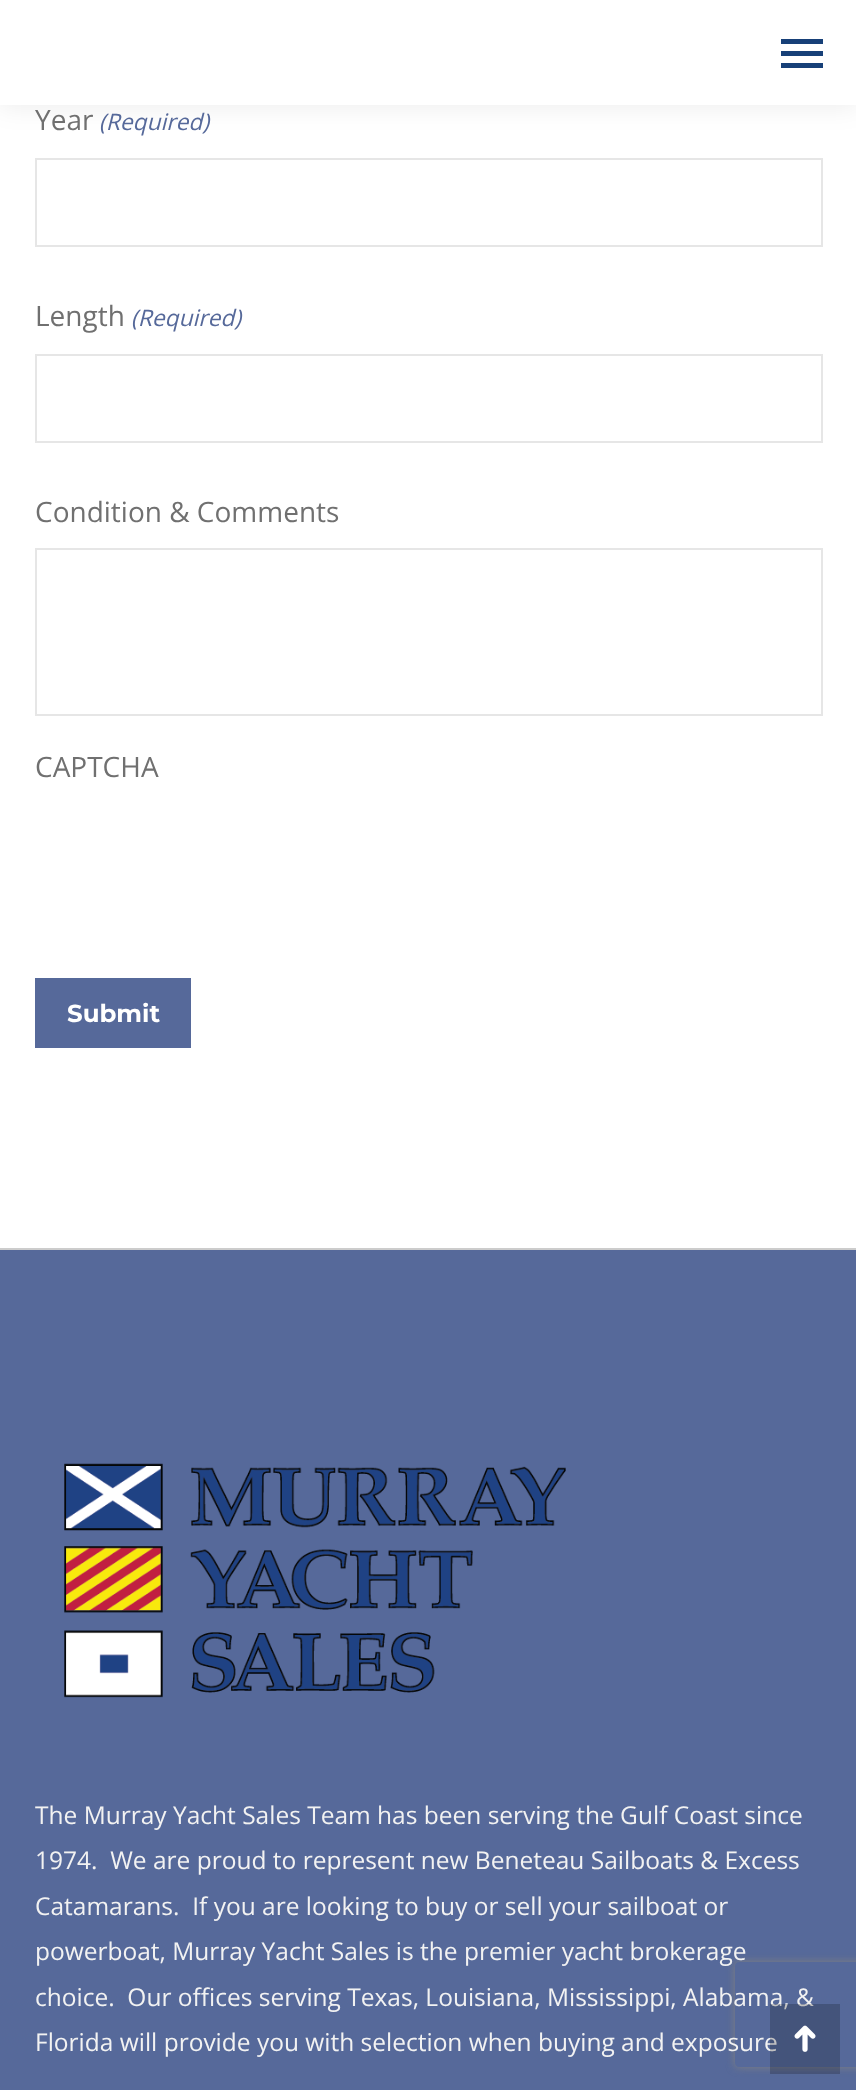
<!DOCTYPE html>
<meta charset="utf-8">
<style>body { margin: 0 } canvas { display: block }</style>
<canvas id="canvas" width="856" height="2090"></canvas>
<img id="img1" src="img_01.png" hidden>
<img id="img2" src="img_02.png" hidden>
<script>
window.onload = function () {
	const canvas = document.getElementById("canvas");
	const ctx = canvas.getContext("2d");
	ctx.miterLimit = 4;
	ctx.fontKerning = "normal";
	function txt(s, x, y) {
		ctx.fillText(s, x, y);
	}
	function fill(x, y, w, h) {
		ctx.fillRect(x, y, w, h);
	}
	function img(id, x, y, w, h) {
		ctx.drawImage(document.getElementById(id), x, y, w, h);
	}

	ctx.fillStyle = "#FFFFFF";
	fill(0, 0, 856, 2090);
	ctx.fillStyle = "rgba(0, 0, 0, 0.07)";
	ctx.filter = "blur(13px)";
	ctx.beginPath();
	ctx.rect(-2, -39, 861, 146);
	ctx.fill();
	ctx.filter = "none";
	ctx.fillStyle = "#FFFFFF";
	fill(0, 0, 856, 105);
	ctx.fillStyle = "#174078";
	fill(781, 39, 42, 5);
	fill(781, 51, 42, 5);
	fill(781, 63, 42, 5);
	ctx.strokeStyle = "#E6E6E6";
	ctx.lineWidth = 2;
	ctx.strokeRect(36, 159, 786, 87);
	ctx.strokeRect(36, 355, 786, 87);
	ctx.strokeRect(36, 549, 786, 166);
	ctx.fillStyle = "#56699A";
	fill(35, 978, 156, 70);
	fill(0, 1250, 856, 840);
	ctx.fillStyle = "#CCCCCC";
	fill(0, 1248, 856, 2);
	img("img1", 64, 1463, 502, 235);
	ctx.save();
	ctx.beginPath();
	ctx.moveTo(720, 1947);
	ctx.lineTo(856, 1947);
	ctx.lineTo(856, 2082);
	ctx.lineTo(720, 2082);
	ctx.closePath();
	ctx.moveTo(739, 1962);
	ctx.lineTo(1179, 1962);
	ctx.bezierCurveTo(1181, 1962, 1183, 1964, 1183, 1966);
	ctx.lineTo(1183, 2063);
	ctx.bezierCurveTo(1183, 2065, 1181, 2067, 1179, 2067);
	ctx.lineTo(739, 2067);
	ctx.bezierCurveTo(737, 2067, 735, 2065, 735, 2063);
	ctx.lineTo(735, 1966);
	ctx.bezierCurveTo(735, 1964, 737, 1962, 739, 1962);
	ctx.closePath();
	ctx.clip("evenodd");
	ctx.fillStyle = "#808080";
	ctx.filter = "blur(4.5px)";
	ctx.beginPath();
	ctx.roundRect(735, 1962, 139, 105, 4);
	ctx.fill();
	ctx.filter = "none";
	ctx.restore();
	ctx.font = "28px Open Sans";
	ctx.fillStyle = "#707070";
	txt("Year", 35, 130);
	ctx.font = "italic 22.75px Open Sans";
	ctx.fillStyle = "#56699A";
	txt("(Required)", 99, 130);
	ctx.font = "28px Open Sans";
	ctx.fillStyle = "#707070";
	txt("Length", 35, 326);
	ctx.font = "italic 22.75px Open Sans";
	ctx.fillStyle = "#56699A";
	txt("(Required)", 131, 326);
	ctx.font = "28px Open Sans";
	ctx.fillStyle = "#707070";
	txt("Condition & Comments", 35, 522);
	txt("CAPTCHA", 35, 777);
	ctx.font = "bold 24.5px Montserrat";
	ctx.fillStyle = "#FFFFFF";
	txt("Submit", 67, 1022);
	ctx.font = "24.5px Open Sans";
	ctx.fillStyle = "#F2F2F2";
	txt("The Murray Yacht Sales Team has been serving the Gulf Coast since", 35, 1824);
	txt("1974.  We are proud to represent new Beneteau Sailboats & Excess", 35, 1869);
	txt("Catamarans.  If you are looking to buy or sell your sailboat or", 35, 1915);
	txt("powerboat, Murray Yacht Sales is the premier yacht brokerage", 35, 1960);
	txt("choice.  Our offices serving Texas, Louisiana, Mississippi, Alabama, &", 35, 2006);
	txt("Florida will provide you with selection when buying and exposure", 35, 2051);
	ctx.fillStyle = "rgba(0, 0, 0, 0.2)";
	fill(770, 2004, 70, 70);
	img("img2", 794, 2025, 22, 27);
};
</script>
